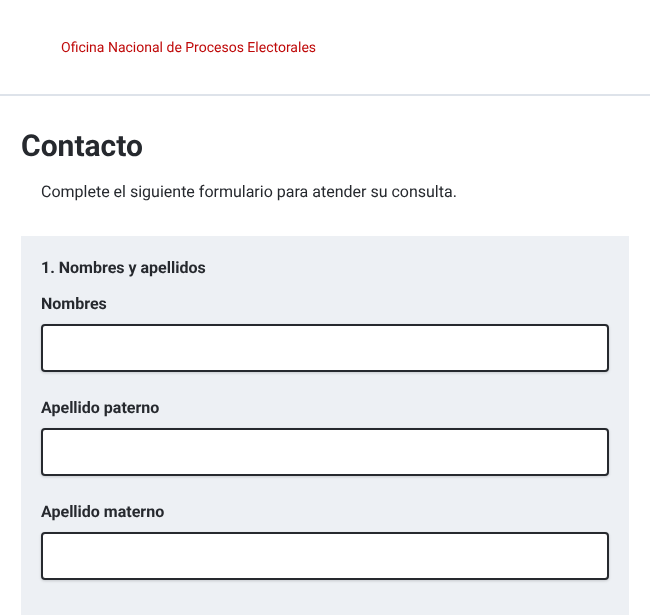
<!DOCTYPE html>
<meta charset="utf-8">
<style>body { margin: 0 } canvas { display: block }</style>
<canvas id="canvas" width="650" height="615"></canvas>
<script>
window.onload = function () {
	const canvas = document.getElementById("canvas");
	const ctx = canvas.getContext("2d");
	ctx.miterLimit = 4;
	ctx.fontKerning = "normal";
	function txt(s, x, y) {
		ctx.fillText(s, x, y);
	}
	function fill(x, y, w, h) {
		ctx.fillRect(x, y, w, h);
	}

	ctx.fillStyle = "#FFFFFF";
	fill(0, 0, 650, 615);
	ctx.fillStyle = "#DEE3EA";
	fill(0, 94, 650, 2);
	ctx.fillStyle = "#EDF0F4";
	fill(21, 236, 608, 379);
	ctx.fillStyle = "rgba(0, 0, 0, 0.06)";
	ctx.filter = "blur(1px)";
	ctx.beginPath();
	ctx.roundRect(41, 325, 568, 48, 4);
	ctx.fill();
	ctx.filter = "none";
	ctx.fillStyle = "rgba(0, 0, 0, 0.1)";
	ctx.filter = "blur(1.5px)";
	ctx.beginPath();
	ctx.roundRect(41, 325, 568, 48, 4);
	ctx.fill();
	ctx.filter = "none";
	ctx.fillStyle = "#FFFFFF";
	ctx.beginPath();
	ctx.roundRect(42, 325, 566, 46, 3);
	ctx.fill();
	ctx.strokeStyle = "#26292E";
	ctx.lineWidth = 2;
	ctx.stroke();
	ctx.fillStyle = "rgba(0, 0, 0, 0.06)";
	ctx.filter = "blur(1px)";
	ctx.beginPath();
	ctx.roundRect(41, 429, 568, 48, 4);
	ctx.fill();
	ctx.filter = "none";
	ctx.fillStyle = "rgba(0, 0, 0, 0.1)";
	ctx.filter = "blur(1.5px)";
	ctx.beginPath();
	ctx.roundRect(41, 429, 568, 48, 4);
	ctx.fill();
	ctx.filter = "none";
	ctx.fillStyle = "#FFFFFF";
	ctx.beginPath();
	ctx.roundRect(42, 429, 566, 46, 3);
	ctx.fill();
	ctx.stroke();
	ctx.fillStyle = "rgba(0, 0, 0, 0.06)";
	ctx.filter = "blur(1px)";
	ctx.beginPath();
	ctx.roundRect(41, 533, 568, 48, 4);
	ctx.fill();
	ctx.filter = "none";
	ctx.fillStyle = "rgba(0, 0, 0, 0.1)";
	ctx.filter = "blur(1.5px)";
	ctx.beginPath();
	ctx.roundRect(41, 533, 568, 48, 4);
	ctx.fill();
	ctx.filter = "none";
	ctx.fillStyle = "#FFFFFF";
	ctx.beginPath();
	ctx.roundRect(42, 533, 566, 46, 3);
	ctx.fill();
	ctx.stroke();
	ctx.font = "14px Roboto";
	ctx.fillStyle = "#BF0909";
	txt("Oficina Nacional de Procesos Electorales", 61, 52);
	ctx.font = "bold 30px Roboto";
	ctx.fillStyle = "#26292E";
	txt("Contacto", 21, 156);
	ctx.font = "16px Roboto";
	txt("Complete el siguiente formulario para atender su consulta.", 41, 197);
	ctx.font = "bold 16px Roboto";
	txt("1. Nombres y apellidos", 41, 273);
	txt("Nombres", 41, 309);
	txt("Apellido paterno", 41, 413);
	txt("Apellido materno", 41, 517);
};
</script>
